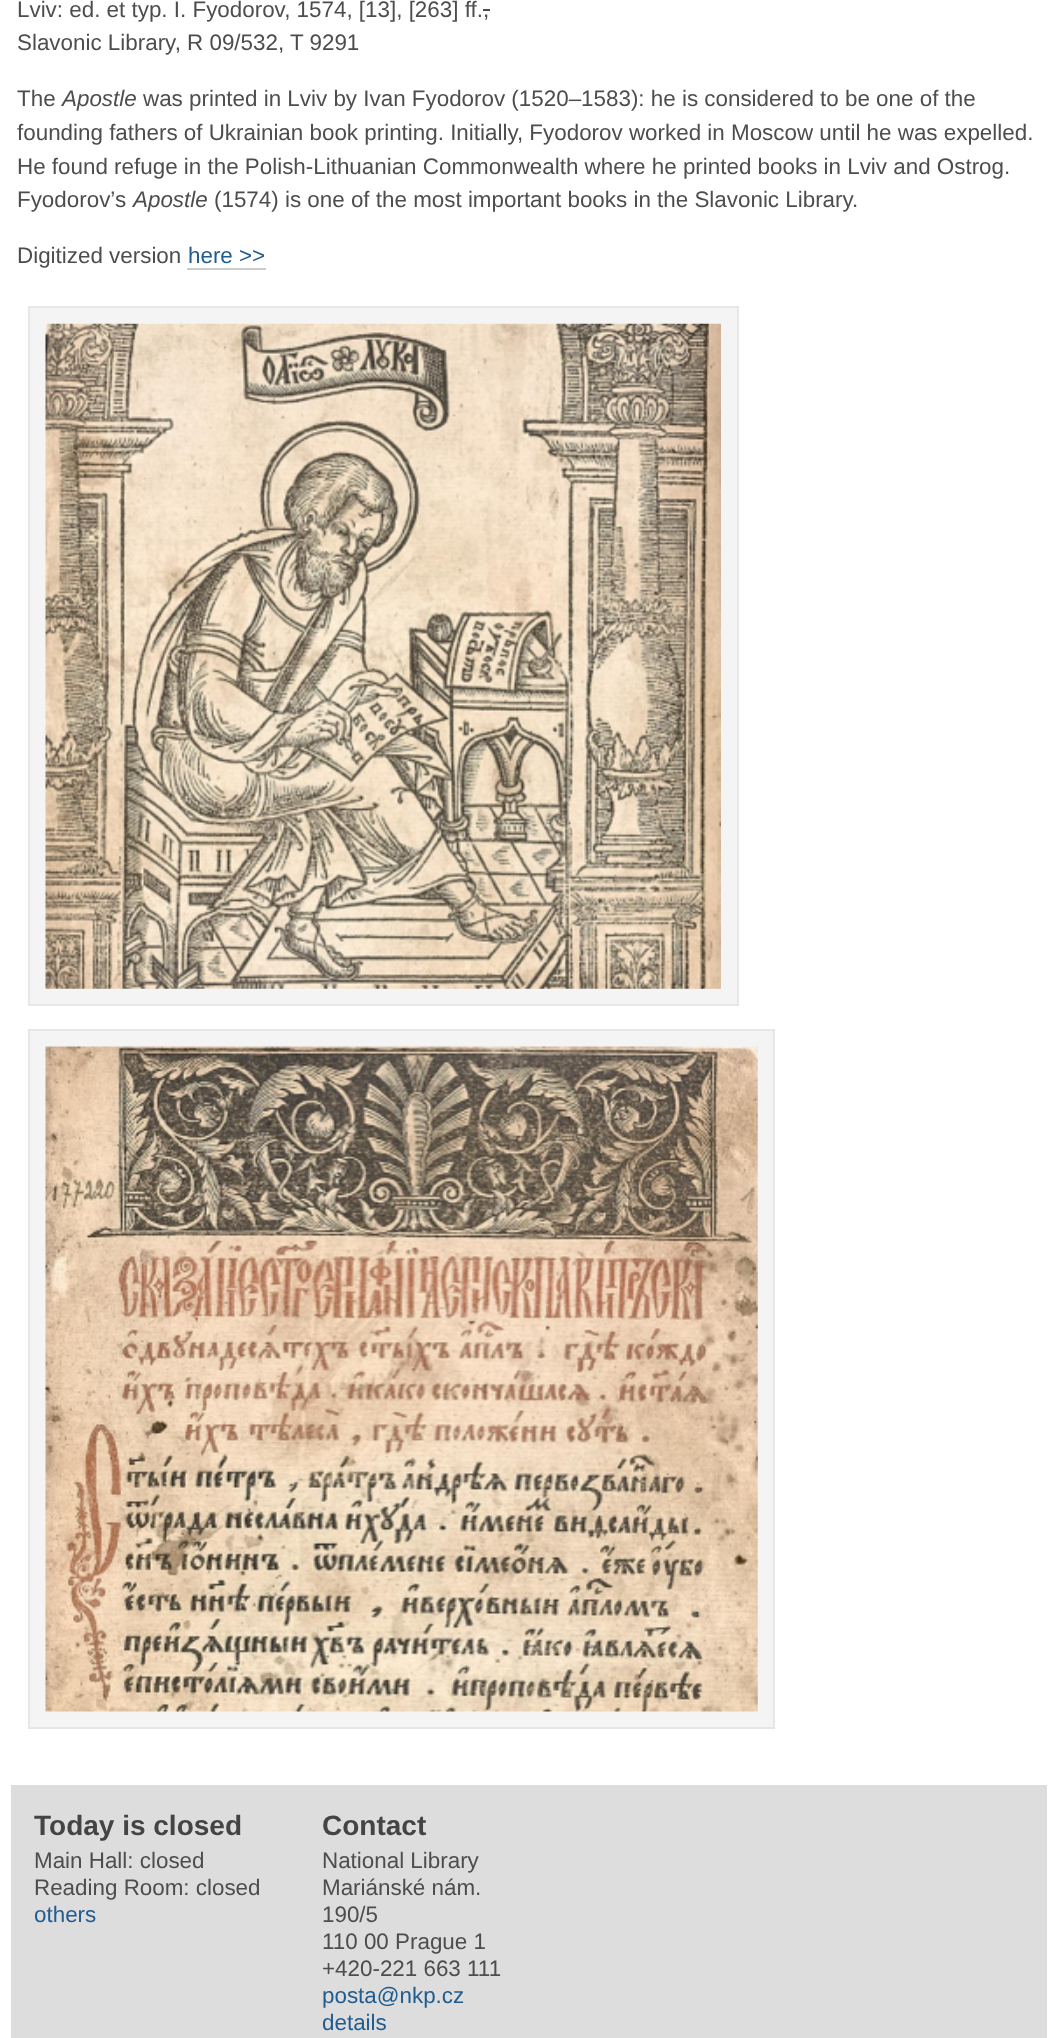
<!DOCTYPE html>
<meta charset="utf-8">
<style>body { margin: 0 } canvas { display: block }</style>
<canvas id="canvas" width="1057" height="2038"></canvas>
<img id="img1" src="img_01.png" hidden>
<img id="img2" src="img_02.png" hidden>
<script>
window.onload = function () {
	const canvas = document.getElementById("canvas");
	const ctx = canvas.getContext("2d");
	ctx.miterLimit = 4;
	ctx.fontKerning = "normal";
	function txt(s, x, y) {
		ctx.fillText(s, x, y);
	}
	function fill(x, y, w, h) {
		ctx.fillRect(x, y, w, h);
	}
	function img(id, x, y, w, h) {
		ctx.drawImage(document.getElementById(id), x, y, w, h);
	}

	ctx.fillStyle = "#FFFFFF";
	fill(0, 0, 1057, 2038);
	ctx.fillStyle = "#4D4D4D";
	fill(483, 9, 7, 2);
	ctx.fillStyle = "#CCCCCC";
	fill(187, 268, 79, 2);
	ctx.fillStyle = "#F4F4F4";
	ctx.beginPath();
	ctx.rect(29, 307, 709, 698);
	ctx.fill();
	ctx.strokeStyle = "#E7E7E7";
	ctx.lineWidth = 2;
	ctx.stroke();
	img("img1", 45, 323, 676, 666);
	ctx.beginPath();
	ctx.rect(29, 1030, 745, 698);
	ctx.fill();
	ctx.stroke();
	img("img2", 45, 1046, 713, 666);
	ctx.fillStyle = "#DDDDDD";
	fill(11, 1785, 1036, 253);
	ctx.font = "22.4px Liberation Sans";
	ctx.fillStyle = "#4D4D4D";
	txt("Lviv: ed. et typ. I. Fyodorov, 1574, [13], [263] ff.,", 17, 17);
	txt("Slavonic Library, R 09/532, T 9291", 17, 50);
	txt("The", 17, 106);
	ctx.font = "italic 22.4px Liberation Sans";
	txt("Apostle", 62, 106);
	ctx.font = "22.4px Liberation Sans";
	txt("was printed in Lviv by Ivan Fyodorov (1520–1583): he is considered to be one of the", 143, 106);
	txt("founding fathers of Ukrainian book printing. Initially, Fyodorov worked in Moscow until he was expelled.", 17, 140);
	txt("He found refuge in the Polish-Lithuanian Commonwealth where he printed books in Lviv and Ostrog.", 17, 174);
	txt("Fyodorov’s", 17, 207);
	ctx.font = "italic 22.4px Liberation Sans";
	txt("Apostle", 133, 207);
	ctx.font = "22.4px Liberation Sans";
	txt("(1574) is one of the most important books in the Slavonic Library.", 214, 207);
	txt("Digitized version", 17, 263);
	ctx.fillStyle = "#205C90";
	txt("here >>", 188, 263);
	ctx.font = "bold 28px Liberation Sans";
	ctx.fillStyle = "#444444";
	txt("Today is closed", 34, 1835);
	ctx.font = "22.4px Liberation Sans";
	ctx.fillStyle = "#4D4D4D";
	txt("Main Hall: closed", 34, 1868);
	txt("Reading Room: closed", 34, 1895);
	ctx.fillStyle = "#205C90";
	txt("others", 34, 1922);
	ctx.font = "bold 28px Liberation Sans";
	ctx.fillStyle = "#444444";
	txt("Contact", 322, 1835);
	ctx.font = "22.4px Liberation Sans";
	ctx.fillStyle = "#4D4D4D";
	txt("National Library", 322, 1868);
	txt("Mariánské nám.", 322, 1895);
	txt("190/5", 322, 1922);
	txt("110 00 Prague 1", 322, 1949);
	txt("+420-221 663 111", 322, 1976);
	ctx.fillStyle = "#205C90";
	txt("posta@nkp.cz", 322, 2003);
	txt("details", 322, 2030);
};
</script>
